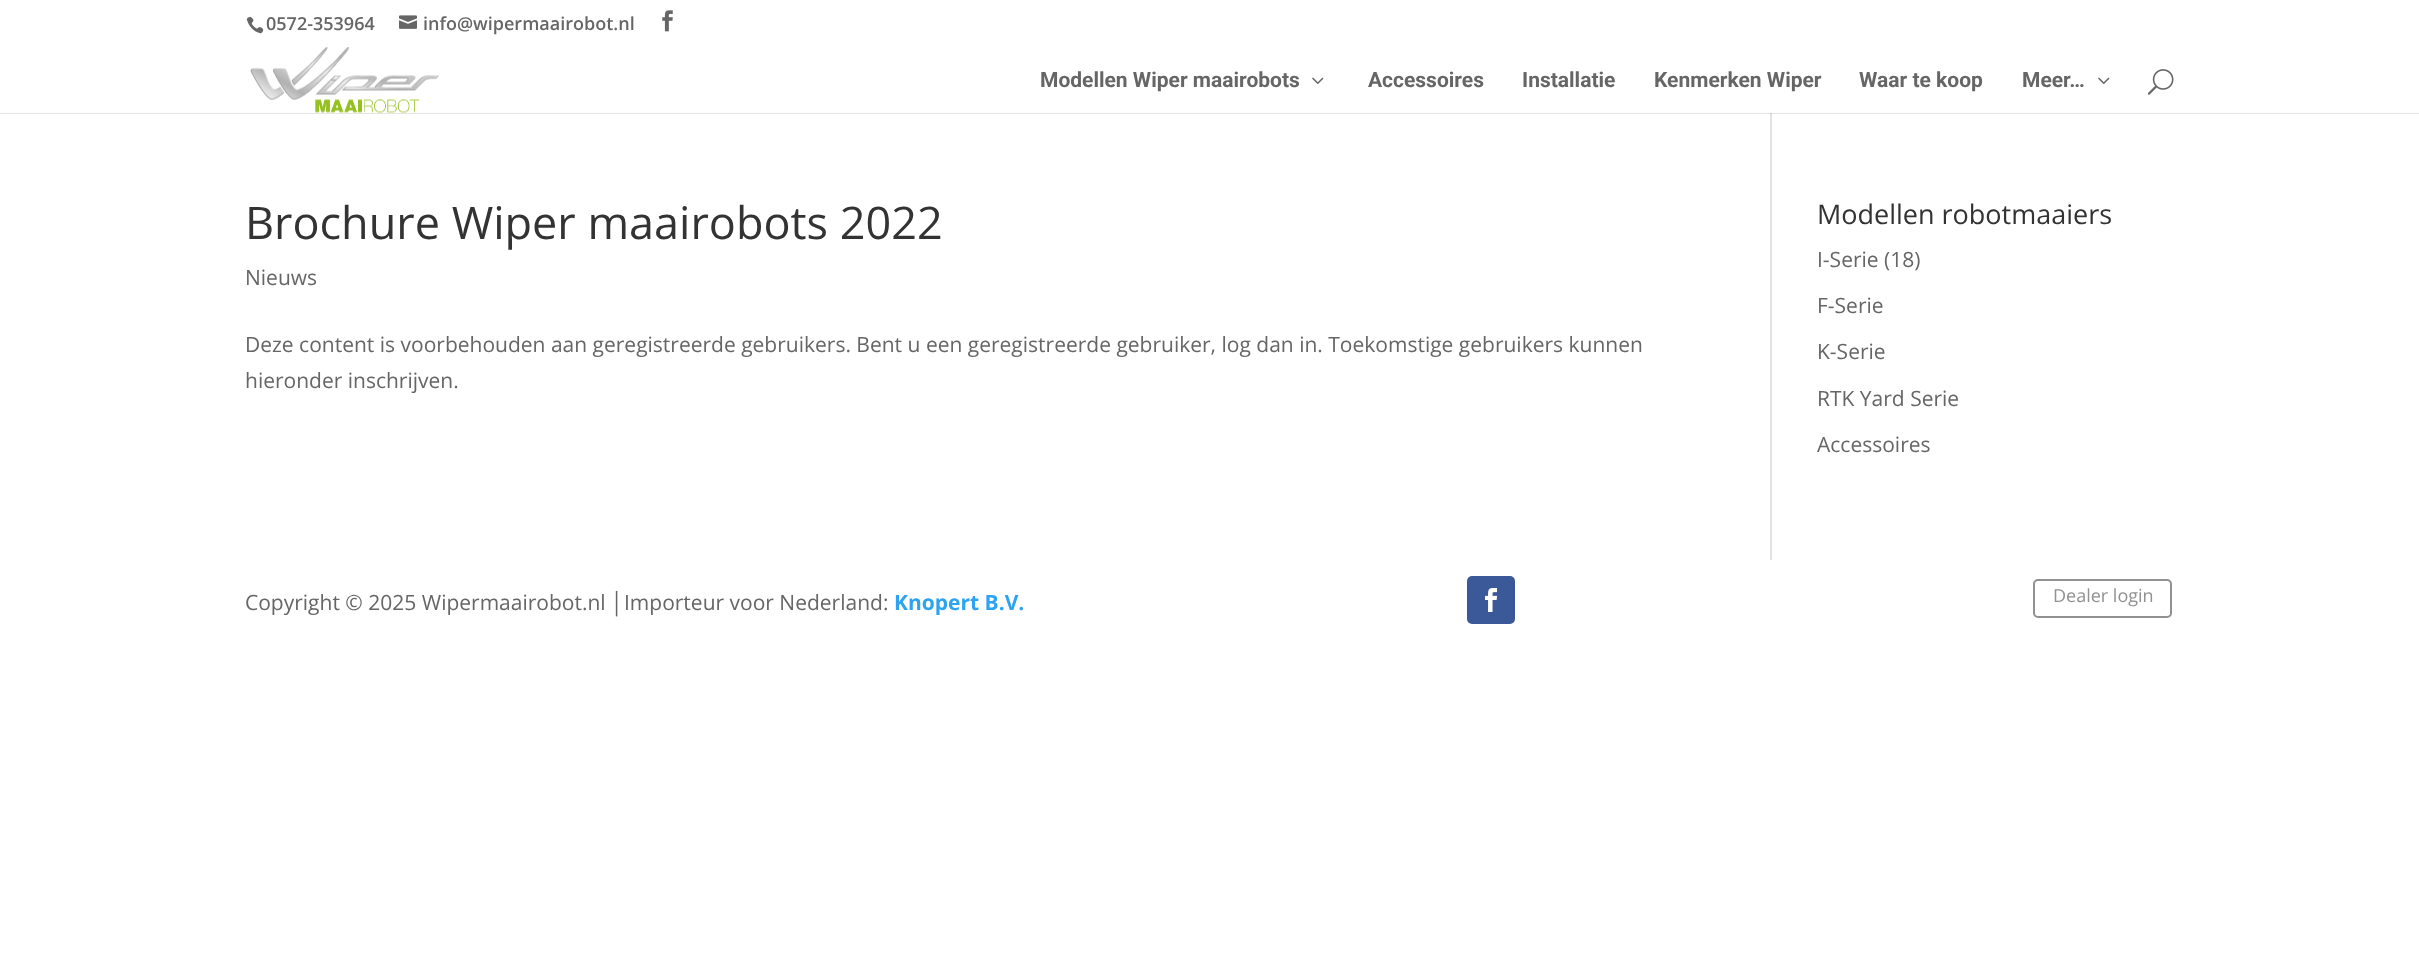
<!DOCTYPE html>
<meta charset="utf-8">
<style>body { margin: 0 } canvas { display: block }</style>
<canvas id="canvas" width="2419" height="974"></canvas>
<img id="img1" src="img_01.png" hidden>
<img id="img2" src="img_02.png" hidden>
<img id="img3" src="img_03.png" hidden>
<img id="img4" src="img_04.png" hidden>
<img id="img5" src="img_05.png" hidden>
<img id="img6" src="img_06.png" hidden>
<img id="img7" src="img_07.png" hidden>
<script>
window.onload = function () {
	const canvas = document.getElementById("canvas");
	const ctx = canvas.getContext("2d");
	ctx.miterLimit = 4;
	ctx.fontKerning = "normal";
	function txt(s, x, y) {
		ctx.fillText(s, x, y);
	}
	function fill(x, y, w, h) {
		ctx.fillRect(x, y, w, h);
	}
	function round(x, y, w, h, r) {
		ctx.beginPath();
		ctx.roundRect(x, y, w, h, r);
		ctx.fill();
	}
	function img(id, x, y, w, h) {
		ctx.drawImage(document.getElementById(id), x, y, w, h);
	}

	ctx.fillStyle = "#FFFFFF";
	fill(0, 0, 2419, 974);
	img("img1", 246, 16, 18, 18);
	img("img2", 399, 15, 18, 14);
	img("img3", 662, 10, 11, 22);
	ctx.fillStyle = "#E2E2E2";
	fill(1770, 113, 2, 447);
	ctx.fillStyle = "rgba(0, 0, 0, 0.1)";
	ctx.beginPath();
	ctx.moveTo(0, 112);
	ctx.lineTo(0, 114);
	ctx.lineTo(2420, 114);
	ctx.lineTo(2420, 48);
	ctx.lineTo(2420, 112);
	ctx.closePath();
	ctx.fill();
	ctx.fillStyle = "#FFFFFF";
	fill(0, 112, 2419, 1);
	img("img4", 250, 47, 189, 66);
	img("img5", 1312, 77, 12, 7);
	img("img5", 2098, 77, 12, 7);
	img("img6", 2147, 69, 27, 26);
	ctx.fillStyle = "#3B5998";
	round(1467, 576, 48, 48, 5);
	img("img7", 1485, 588, 13, 24);
	ctx.beginPath();
	ctx.roundRect(2034, 580, 137, 37, 4);
	ctx.strokeStyle = "#919191";
	ctx.lineWidth = 2;
	ctx.stroke();
	ctx.font = "600 18px Open Sans";
	ctx.fillStyle = "#666666";
	txt("0572-353964", 266, 30);
	txt("info@wipermaairobot.nl", 423, 30);
	ctx.font = "bold 21px Roboto";
	txt("Modellen Wiper maairobots", 1040, 87);
	txt("Accessoires", 1368, 87);
	txt("Installatie", 1522, 87);
	txt("Kenmerken Wiper", 1654, 87);
	txt("Waar te koop", 1859, 87);
	txt("Meer…", 2022, 87);
	ctx.font = "45px Open Sans";
	ctx.fillStyle = "#333333";
	txt("Brochure Wiper maairobots 2022", 245, 239);
	ctx.font = "21px Open Sans";
	ctx.fillStyle = "#666666";
	txt("Nieuws", 245, 285);
	txt("Deze content is voorbehouden aan geregistreerde gebruikers. Bent u een geregistreerde gebruiker, log dan in. Toekomstige gebruikers kunnen", 245, 352);
	txt("hieronder inschrijven.", 245, 388);
	ctx.font = "27px Open Sans";
	ctx.fillStyle = "#333333";
	txt("Modellen robotmaaiers", 1817, 224);
	ctx.font = "21px Open Sans";
	ctx.fillStyle = "#666666";
	txt("I-Serie (18)", 1817, 267);
	txt("F-Serie", 1817, 313);
	txt("K-Serie", 1817, 359);
	txt("RTK Yard Serie", 1817, 406);
	txt("Accessoires", 1817, 452);
	txt("Copyright © 2025 Wipermaairobot.nl", 245, 610);
	ctx.font = "21px Liberation Sans";
	txt("│", 611, 610);
	ctx.font = "21px Open Sans";
	txt("Importeur voor Nederland:", 624, 610);
	ctx.font = "bold 21px Open Sans";
	ctx.fillStyle = "#2EA3F2";
	txt("Knopert B.V.", 894, 610);
	ctx.font = "18px Open Sans";
	ctx.fillStyle = "#919191";
	txt("Dealer login", 2053, 602);
};
</script>
